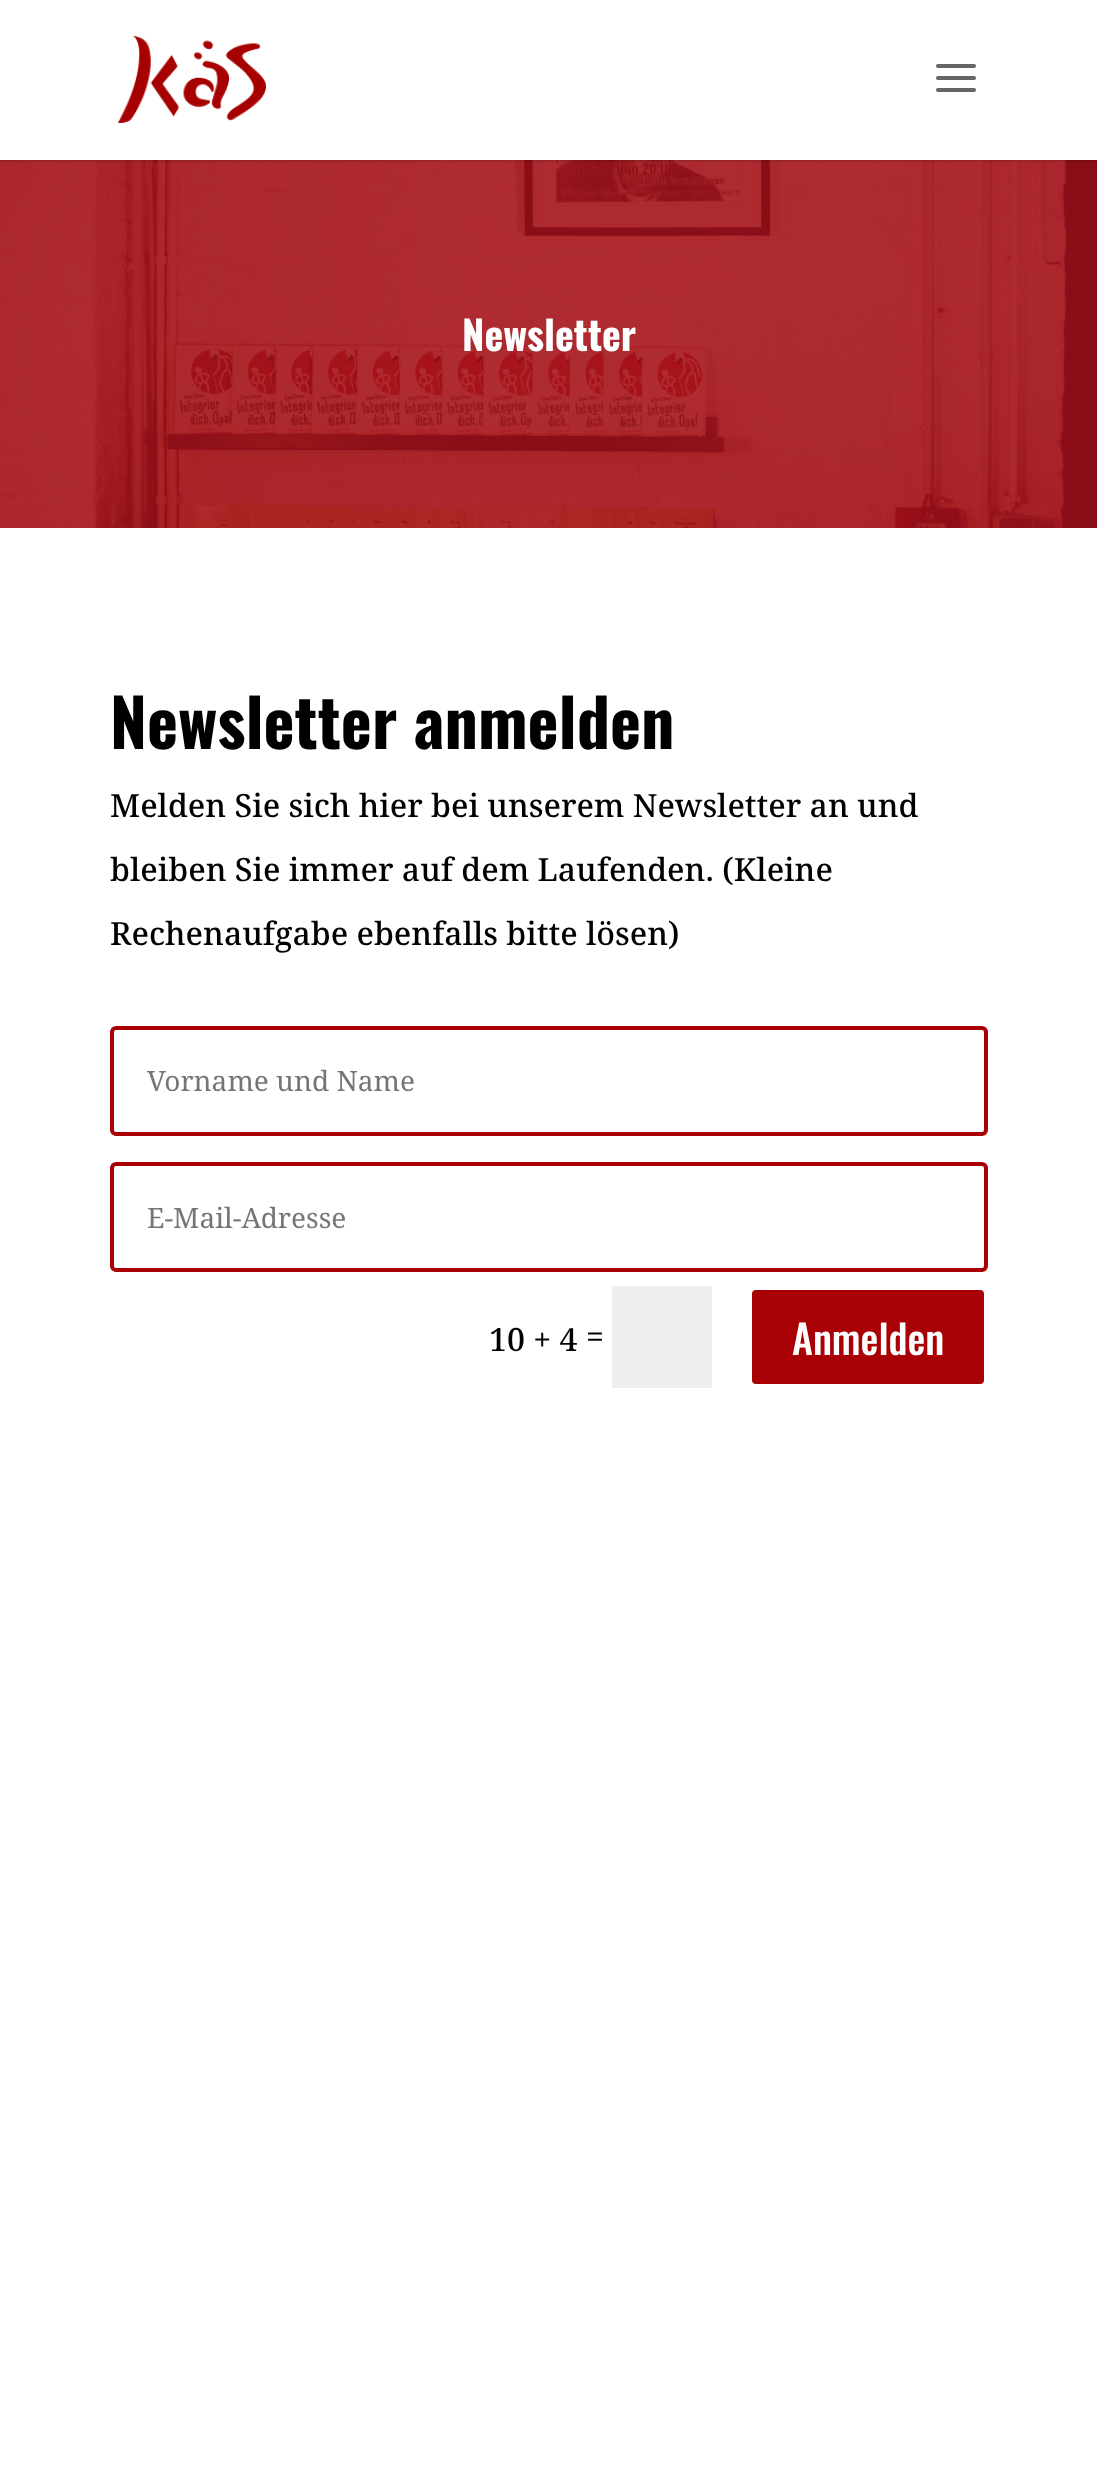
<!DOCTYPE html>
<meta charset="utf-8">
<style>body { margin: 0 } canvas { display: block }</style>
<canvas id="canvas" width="1097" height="2472"></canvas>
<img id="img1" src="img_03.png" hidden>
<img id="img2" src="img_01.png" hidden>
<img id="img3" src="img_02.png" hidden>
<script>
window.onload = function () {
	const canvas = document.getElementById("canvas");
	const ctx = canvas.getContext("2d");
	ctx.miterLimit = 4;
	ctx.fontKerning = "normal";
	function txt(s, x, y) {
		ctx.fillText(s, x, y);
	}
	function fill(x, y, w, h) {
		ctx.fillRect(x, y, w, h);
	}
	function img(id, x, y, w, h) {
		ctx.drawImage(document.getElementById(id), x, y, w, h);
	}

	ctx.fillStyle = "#FFFFFF";
	fill(0, 0, 1097, 2472);
	img("img1", 0, 160, 1097, 368);
	ctx.fillStyle = "rgba(0, 0, 0, 0.1)";
	fill(0, 160, 1097, 2);
	img("img2", 118, 36, 148, 87);
	img("img3", 936, 64, 40, 28);
	ctx.beginPath();
	ctx.roundRect(112, 1028, 874, 106, 4);
	ctx.strokeStyle = "#A90006";
	ctx.lineWidth = 4;
	ctx.stroke();
	ctx.beginPath();
	ctx.roundRect(112, 1164, 874, 106, 4);
	ctx.stroke();
	ctx.fillStyle = "#EEEEEE";
	fill(612, 1286, 100, 102);
	ctx.fillStyle = "#A90006";
	ctx.beginPath();
	ctx.roundRect(750, 1288, 236, 98, 6);
	ctx.fill();
	ctx.strokeStyle = "#FFFFFF";
	ctx.stroke();
	ctx.font = "bold 40px Oswald";
	ctx.fillStyle = "#FFFFFF";
	txt("Newsletter", 462, 351);
	ctx.font = "bold 66px Oswald";
	ctx.fillStyle = "#000000";
	txt("Newsletter anmelden", 110, 749);
	ctx.font = "500 32px Noto Serif";
	txt("Melden Sie sich hier bei unserem Newsletter an und", 110, 817);
	txt("bleiben Sie immer auf dem Laufenden. (Kleine", 110, 881);
	txt("Rechenaufgabe ebenfalls bitte lösen)", 110, 945);
	ctx.font = "28px Noto Serif";
	ctx.fillStyle = "#757575";
	txt("Vorname und Name", 147, 1091);
	txt("E-Mail-Adresse", 147, 1228);
	ctx.font = "500 32px Noto Serif";
	ctx.fillStyle = "#000000";
	txt("10 + 4", 489, 1351);
	txt("=", 586, 1348);
	ctx.font = "500 40px Oswald";
	ctx.fillStyle = "#FFFFFF";
	txt("Anmelden", 792, 1355);
};
</script>
